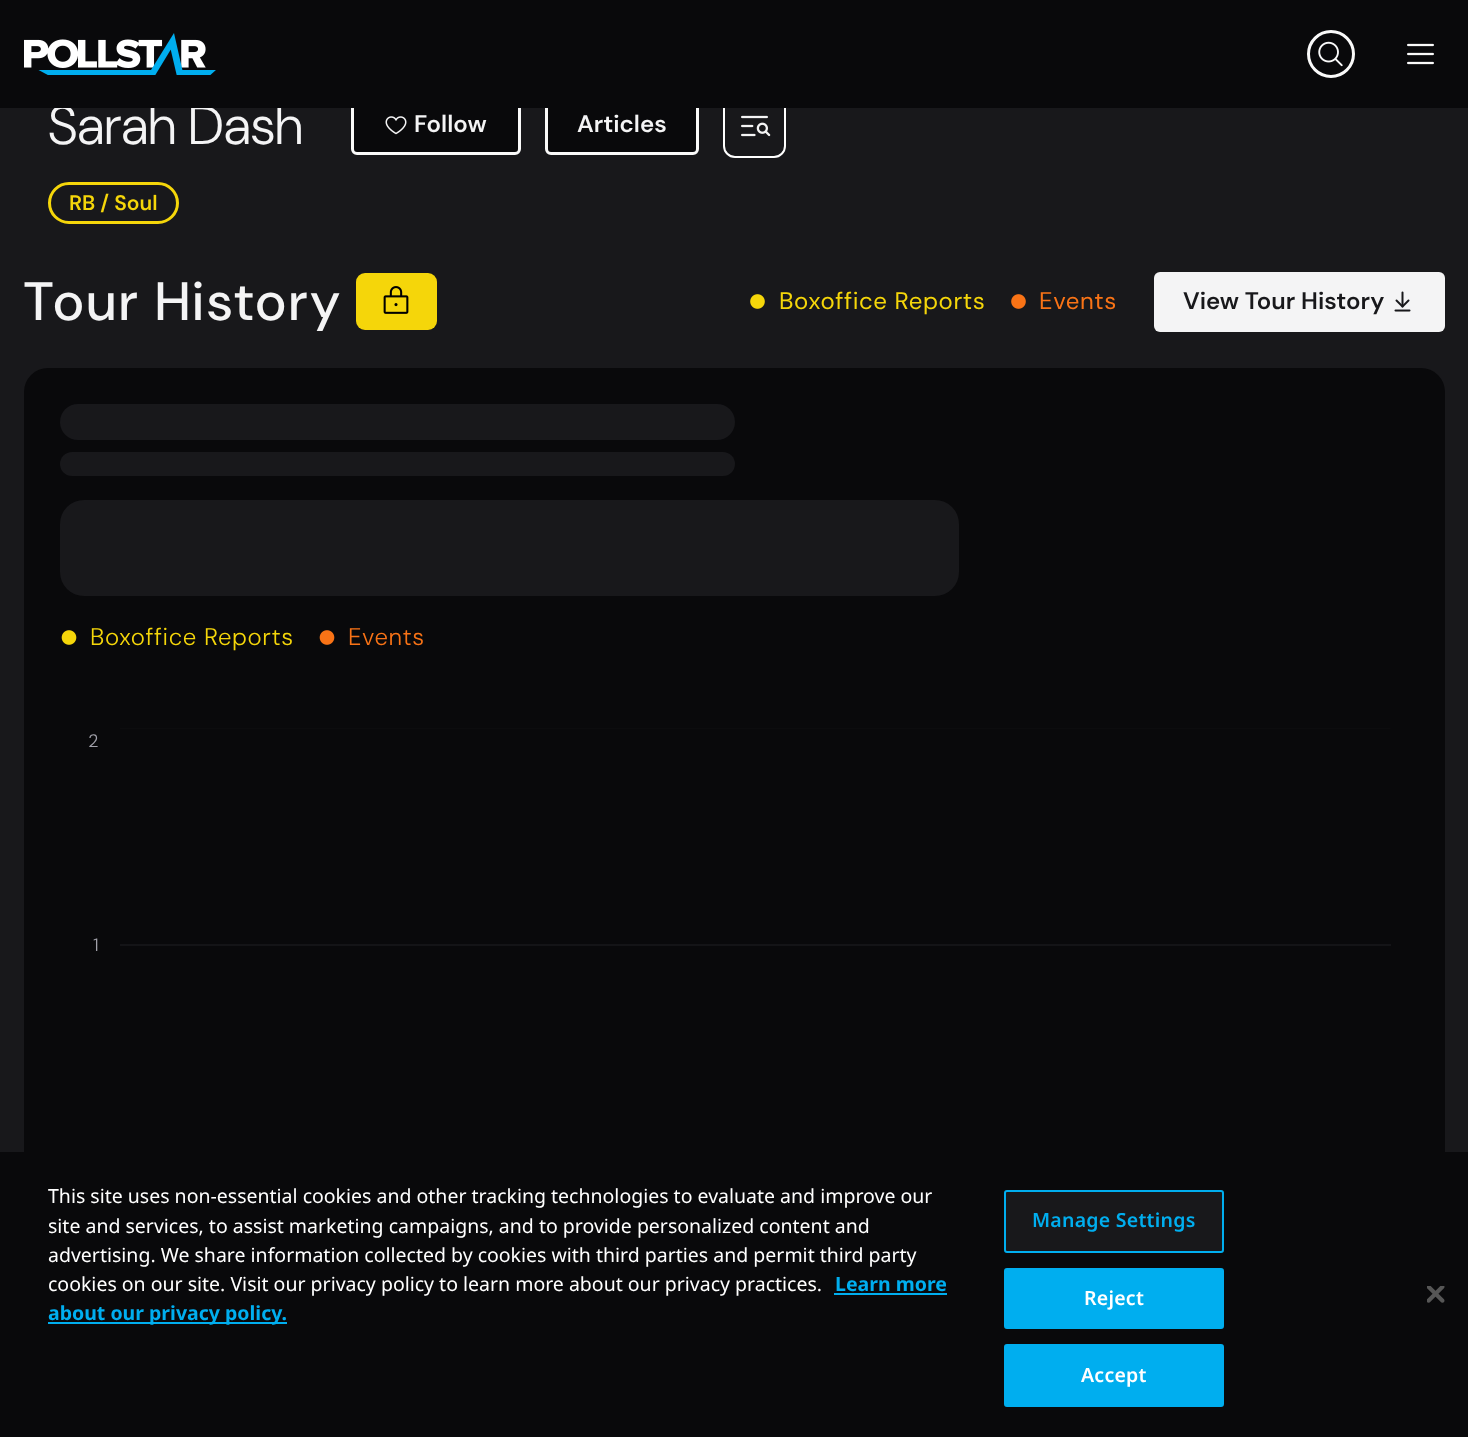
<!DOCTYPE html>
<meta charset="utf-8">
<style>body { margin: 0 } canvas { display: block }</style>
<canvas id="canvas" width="1468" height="1437"></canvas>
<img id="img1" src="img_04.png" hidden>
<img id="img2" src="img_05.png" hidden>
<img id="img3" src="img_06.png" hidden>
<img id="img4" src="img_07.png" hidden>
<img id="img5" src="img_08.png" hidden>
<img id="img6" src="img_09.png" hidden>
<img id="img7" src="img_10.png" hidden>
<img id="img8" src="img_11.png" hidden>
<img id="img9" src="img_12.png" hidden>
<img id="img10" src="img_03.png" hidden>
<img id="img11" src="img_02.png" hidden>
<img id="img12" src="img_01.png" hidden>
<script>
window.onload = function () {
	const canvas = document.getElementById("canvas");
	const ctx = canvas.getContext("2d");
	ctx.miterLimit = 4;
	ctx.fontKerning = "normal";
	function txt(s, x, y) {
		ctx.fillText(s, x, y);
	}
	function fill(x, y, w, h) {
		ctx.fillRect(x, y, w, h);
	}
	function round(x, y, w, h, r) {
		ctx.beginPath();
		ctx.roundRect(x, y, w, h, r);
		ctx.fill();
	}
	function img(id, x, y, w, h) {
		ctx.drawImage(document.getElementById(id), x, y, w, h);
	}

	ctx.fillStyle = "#18181B";
	fill(0, 0, 1468, 1437);
	ctx.fillStyle = "#09090B";
	ctx.beginPath();
	ctx.roundRect(352.5, 96.5, 167, 57, 4.5);
	ctx.fill();
	ctx.strokeStyle = "#FAFAFA";
	ctx.lineWidth = 3;
	ctx.stroke();
	img("img1", 385, 116, 22, 19);
	ctx.beginPath();
	ctx.roundRect(546.5, 96.5, 151, 57, 4.5);
	ctx.fill();
	ctx.stroke();
	ctx.beginPath();
	ctx.roundRect(724, 96, 61, 61, 11);
	ctx.strokeStyle = "#FFFFFF";
	ctx.lineWidth = 2;
	ctx.stroke();
	img("img2", 741, 115, 30, 22);
	ctx.beginPath();
	ctx.roundRect(49.5, 183.5, 128, 39, 19.5);
	ctx.strokeStyle = "#F5D60A";
	ctx.lineWidth = 3;
	ctx.stroke();
	ctx.fillStyle = "#F5D60A";
	round(356, 273, 81, 57, 9);
	img("img3", 383, 286, 26, 28);
	img("img4", 750, 294, 15, 15);
	img("img5", 1011, 294, 15, 15);
	ctx.fillStyle = "#F4F4F5";
	round(1154, 272, 291, 60, 6);
	img("img6", 1394, 291, 17, 21);
	ctx.fillStyle = "#09090B";
	round(24, 368, 1421, 876, 24);
	ctx.fillStyle = "#18181B";
	round(60, 404, 675, 36, 18);
	round(60, 452, 675, 24, 12);
	round(60, 500, 899, 96, 24);
	img("img7", 61, 630, 16, 15);
	img("img8", 319, 630, 16, 15);
	ctx.fillStyle = "#141417";
	fill(120, 944, 1271, 2);
	ctx.save();
	ctx.beginPath();
	ctx.rect(60, 728, 1349, 480);
	ctx.clip();
	ctx.beginPath();
	ctx.moveTo(120, 727.5);
	ctx.lineTo(1390.5, 727.5);
	ctx.strokeStyle = "#18181B";
	ctx.lineWidth = 1.5;
	ctx.stroke();
	ctx.restore();
	ctx.fillStyle = "#09090B";
	fill(0, 1152, 1468, 285);
	ctx.fillStyle = "#00AEEF";
	fill(834, 1293, 113, 2);
	fill(48, 1322, 239, 2);
	ctx.fillStyle = "#18181B";
	ctx.beginPath();
	ctx.roundRect(1005, 1191, 218, 61, 2);
	ctx.fill();
	ctx.strokeStyle = "#00AEEF";
	ctx.lineWidth = 2;
	ctx.stroke();
	ctx.fillStyle = "#00AEEF";
	ctx.beginPath();
	ctx.roundRect(1005, 1269, 218, 59, 2);
	ctx.fill();
	ctx.stroke();
	ctx.beginPath();
	ctx.roundRect(1005, 1345, 218, 61, 2);
	ctx.fill();
	ctx.stroke();
	img("img9", 1427, 1286, 18, 17);
	ctx.font = "300 54px DM Sans";
	ctx.fillStyle = "#F4F4F5";
	txt("Sarah Dash", 48, 144);
	ctx.fillStyle = "#09090B";
	fill(0, 0, 1468, 108);
	img("img10", 1407, 43, 27, 22);
	ctx.beginPath();
	ctx.arc(1331, 54, 22.5, 0, Math.PI * 2);
	ctx.strokeStyle = "#FAFAFA";
	ctx.lineWidth = 3;
	ctx.stroke();
	img("img11", 1318, 41, 25, 26);
	img("img12", 24, 33, 192, 42);
	ctx.font = "600 24px DM Sans";
	ctx.fillStyle = "#F4F4F5";
	txt("Follow", 414, 132);
	txt("Articles", 577, 132);
	ctx.font = "600 21px 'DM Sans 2'";
	ctx.fillStyle = "#F5D60A";
	txt("RB / Soul", 69, 210);
	ctx.letterSpacing = "3px";
	ctx.font = "500 54px DM Sans";
	ctx.fillStyle = "#F4F4F5";
	txt("Tour History", 24, 320);
	ctx.letterSpacing = "0.6px";
	ctx.font = "24px DM Sans";
	ctx.fillStyle = "#F5D60A";
	txt("Boxoffice Reports", 779, 309);
	ctx.fillStyle = "#F97316";
	txt("Events", 1039, 309);
	ctx.letterSpacing = "0px";
	ctx.font = "600 24px DM Sans";
	ctx.fillStyle = "#18181B";
	txt("View Tour History", 1183, 309);
	ctx.letterSpacing = "0.6px";
	ctx.font = "300 24px 'DM Sans 2'";
	ctx.fillStyle = "#F5D60A";
	txt("Boxoffice Reports", 90, 645);
	ctx.fillStyle = "#F97316";
	txt("Events", 348, 645);
	ctx.letterSpacing = "0px";
	ctx.font = "300 18px 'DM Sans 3'";
	ctx.fillStyle = "#A1A1AA";
	txt("2", 88, 747);
	txt("1", 93, 951);
	ctx.font = "19.5px Noto Sans";
	ctx.fillStyle = "#FFFFFF";
	txt("This site uses non-essential cookies and other tracking technologies to evaluate and improve our", 48, 1203);
	txt("site and services, to assist marketing campaigns, and to provide personalized content and", 48, 1233);
	txt("advertising. We share information collected by cookies with third parties and permit third party", 48, 1262);
	txt("cookies on our site. Visit our privacy policy to learn more about our privacy practices.", 48, 1291);
	ctx.font = "bold 19.5px Noto Sans";
	ctx.fillStyle = "#00AEEF";
	txt("Learn more", 835, 1291);
	txt("about our privacy policy.", 48, 1320);
	ctx.letterSpacing = "0.25px";
	ctx.font = "600 19.5px Noto Sans";
	txt("Manage Settings", 1032, 1227);
	ctx.fillStyle = "#FFFFFF";
	txt("Reject", 1084, 1305);
	txt("Accept", 1081, 1382);
};
</script>
